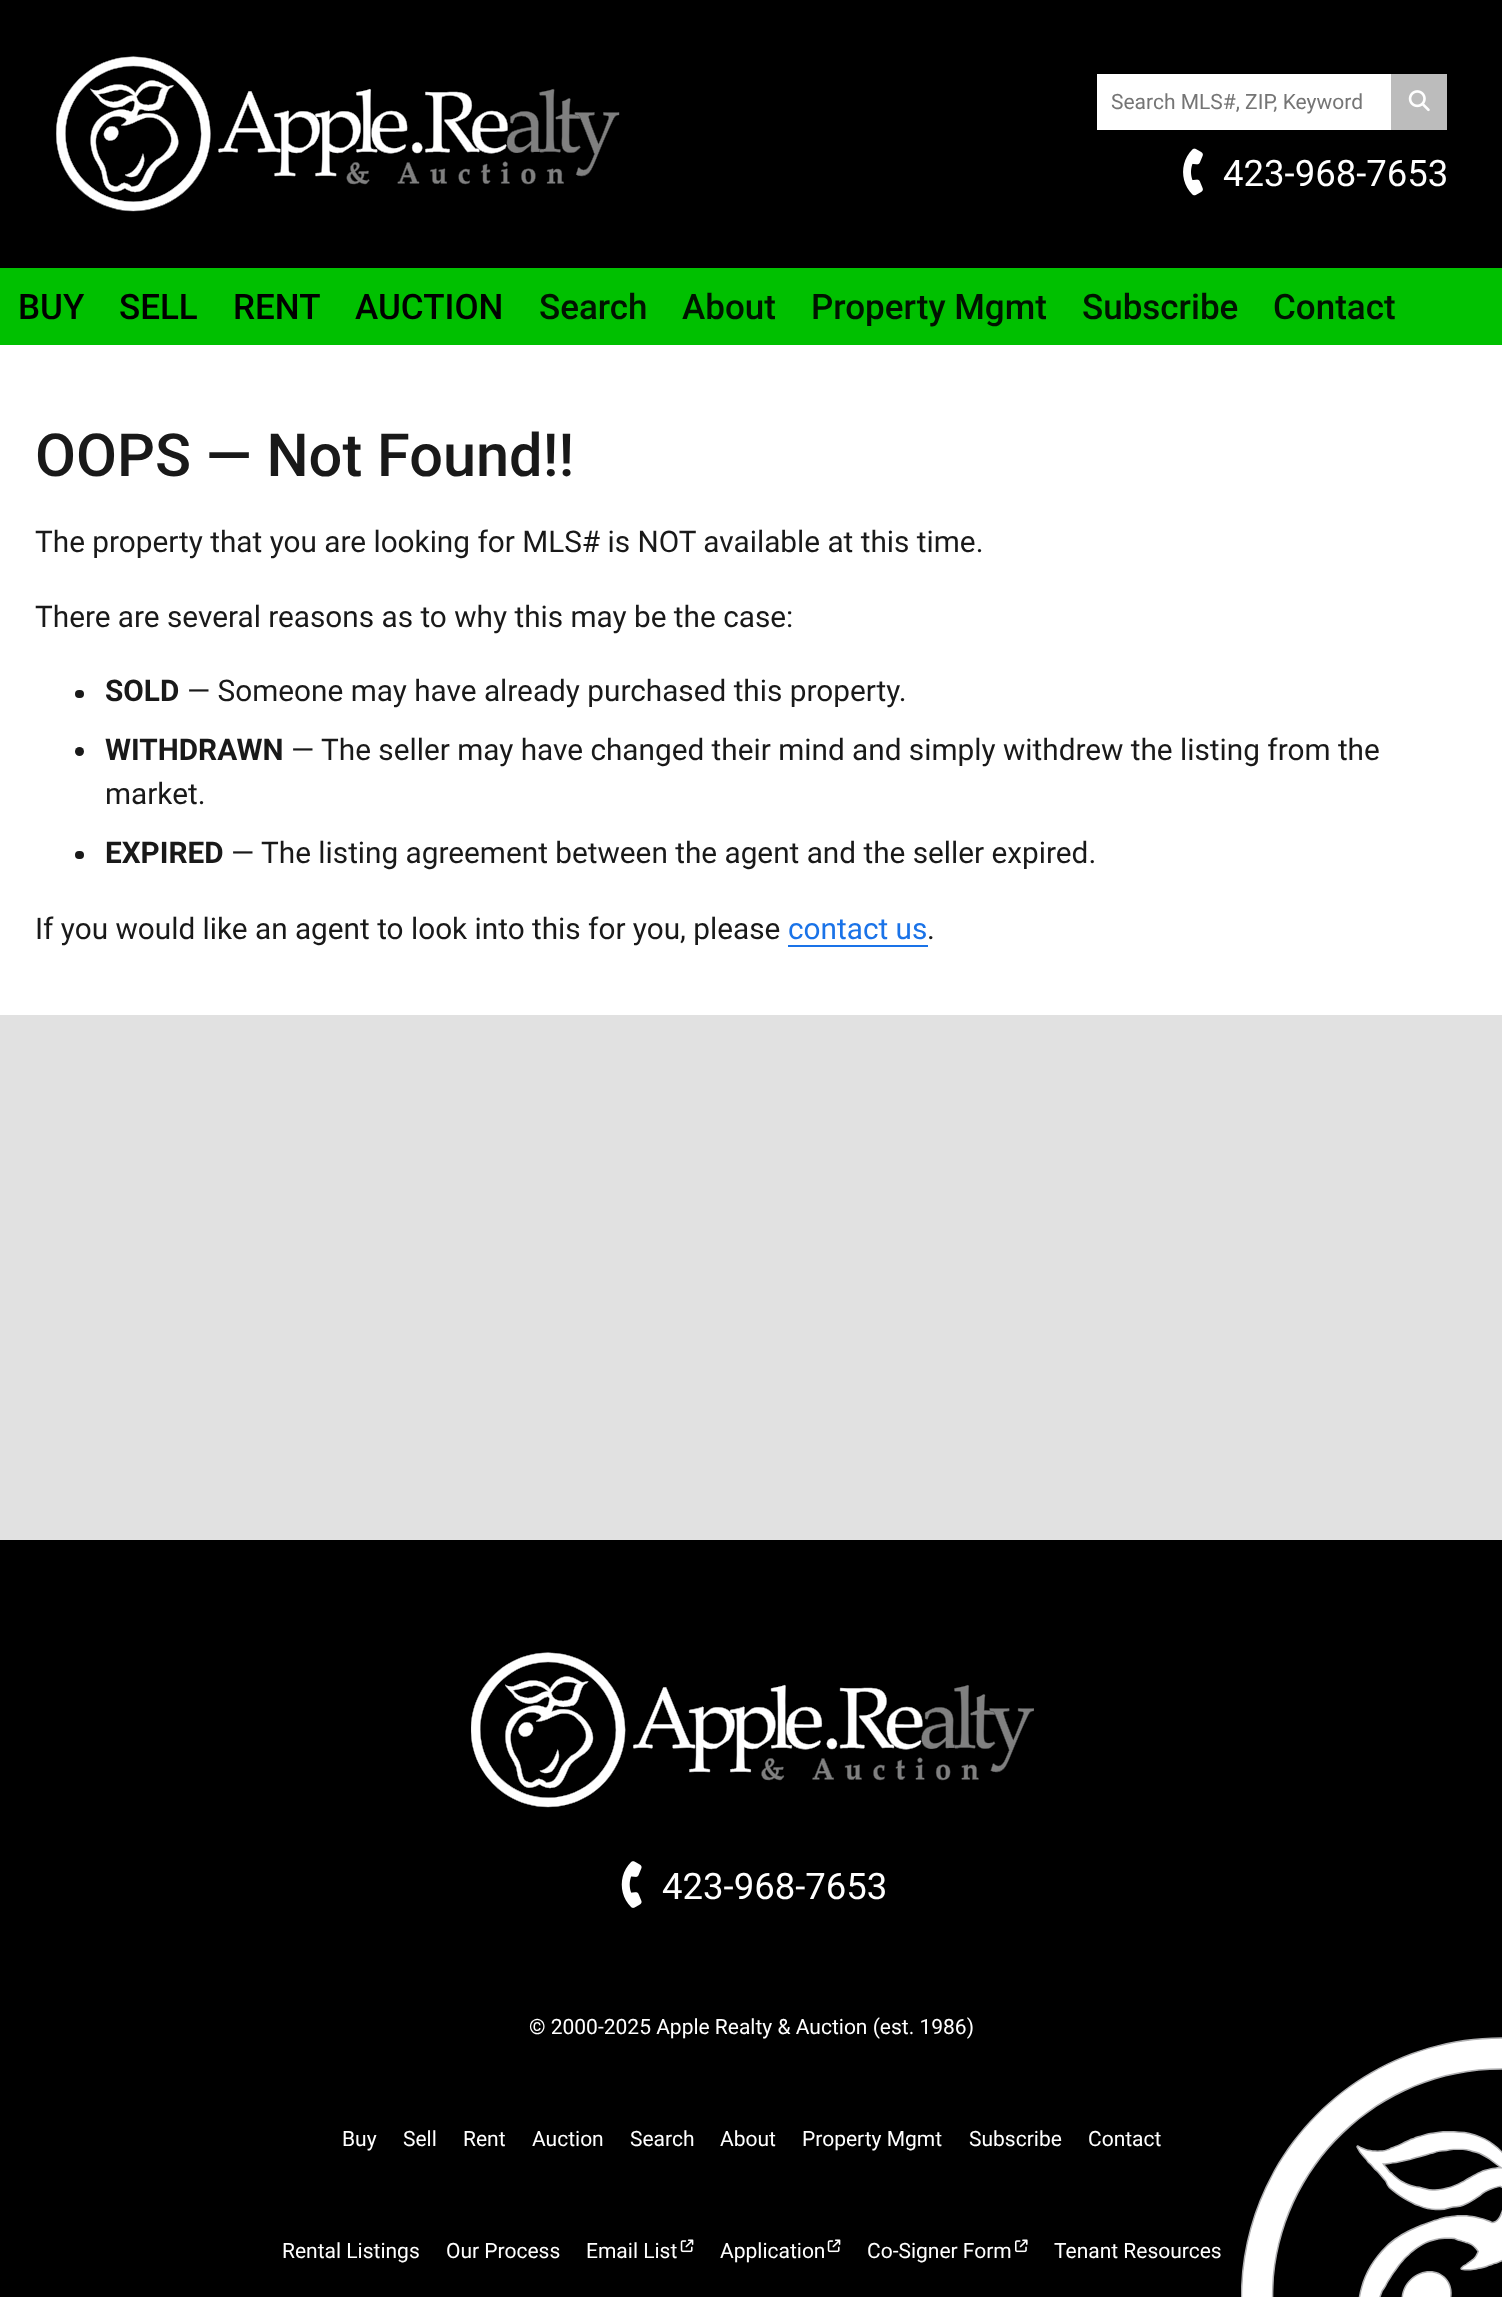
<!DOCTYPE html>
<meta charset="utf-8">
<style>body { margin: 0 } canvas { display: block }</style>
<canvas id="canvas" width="1502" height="2297"></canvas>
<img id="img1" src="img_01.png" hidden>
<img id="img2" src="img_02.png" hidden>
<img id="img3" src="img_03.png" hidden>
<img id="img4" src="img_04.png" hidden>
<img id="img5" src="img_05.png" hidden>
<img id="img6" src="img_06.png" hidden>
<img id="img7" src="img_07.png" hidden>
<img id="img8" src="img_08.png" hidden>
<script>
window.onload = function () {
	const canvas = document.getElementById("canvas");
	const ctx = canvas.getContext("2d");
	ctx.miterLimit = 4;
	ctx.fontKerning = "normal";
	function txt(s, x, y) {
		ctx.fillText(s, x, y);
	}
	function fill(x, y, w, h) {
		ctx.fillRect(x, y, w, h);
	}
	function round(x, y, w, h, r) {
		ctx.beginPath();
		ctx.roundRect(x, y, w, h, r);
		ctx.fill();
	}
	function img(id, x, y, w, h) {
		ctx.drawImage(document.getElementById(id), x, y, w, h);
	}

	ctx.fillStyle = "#E1E1E1";
	fill(0, 0, 1502, 2297);
	ctx.fillStyle = "#000000";
	fill(0, 0, 1502, 268);
	img("img1", 56, 56, 564, 156);
	ctx.fillStyle = "#FFFFFF";
	fill(1097, 74, 294, 56);
	ctx.fillStyle = "#BCBCBC";
	fill(1391, 74, 56, 56);
	img("img2", 1408, 90, 22, 22);
	img("img3", 1183, 148, 20, 48);
	ctx.fillStyle = "#00C000";
	fill(0, 268, 1502, 77);
	ctx.fillStyle = "#FFFFFF";
	fill(0, 345, 1502, 670);
	ctx.fillStyle = "#191919";
	round(75, 690, 9, 8, 4);
	ctx.beginPath();
	ctx.arc(79.5, 751.5, 4.5, 0, Math.PI * 2);
	ctx.fill();
	round(75, 851, 9, 8, 4);
	ctx.fillStyle = "#1A73E8";
	fill(788, 945, 140, 2);
	ctx.fillStyle = "#000000";
	fill(0, 1540, 1502, 757);
	img("img4", 1241, 2037, 261, 260);
	img("img5", 471, 1652, 563, 156);
	img("img6", 621, 1861, 21, 47);
	img("img7", 680, 2239, 14, 14);
	img("img7", 827, 2239, 14, 14);
	img("img8", 1015, 2239, 13, 14);
	ctx.font = "21px Roboto";
	ctx.fillStyle = "#757575";
	txt("Search MLS#, ZIP, Keyword", 1111, 109);
	ctx.font = "36.5px Roboto";
	ctx.fillStyle = "#FFFFFF";
	txt("423-968-7653", 1223, 186);
	ctx.font = "500 35px Roboto";
	ctx.fillStyle = "#000000";
	txt("BUY", 18, 319);
	txt("SELL", 119, 319);
	txt("RENT", 233, 319);
	txt("AUCTION", 355, 319);
	ctx.fillStyle = "#001300";
	txt("Search", 539, 319);
	txt("About", 682, 319);
	txt("Property Mgmt", 811, 319);
	txt("Subscribe", 1082, 319);
	txt("Contact", 1273, 319);
	ctx.font = "500 59.5px Roboto";
	ctx.fillStyle = "#191919";
	txt("OOPS — Not Found!!", 35, 476);
	ctx.font = "29.75px Roboto";
	txt("The property that you are looking for MLS# is NOT available at this time.", 35, 552);
	txt("There are several reasons as to why this may be the case:", 35, 627);
	ctx.font = "bold 29.75px Roboto";
	txt("SOLD", 105, 701);
	ctx.font = "29.75px Roboto";
	txt("— Someone may have already purchased this property.", 187, 701);
	ctx.font = "bold 29.75px Roboto";
	txt("WITHDRAWN", 105, 760);
	ctx.font = "29.75px Roboto";
	txt("— The seller may have changed their mind and simply withdrew the listing from the", 291, 760);
	txt("market.", 105, 804);
	ctx.font = "bold 29.75px Roboto";
	txt("EXPIRED", 105, 863);
	ctx.font = "29.75px Roboto";
	txt("— The listing agreement between the agent and the seller expired.", 231, 863);
	txt("If you would like an agent to look into this for you, please", 35, 939);
	ctx.fillStyle = "#1A73E8";
	txt("contact us", 788, 939);
	ctx.fillStyle = "#191919";
	txt(".", 927, 939);
	ctx.font = "36.5px Roboto";
	ctx.fillStyle = "#FFFFFF";
	txt("423-968-7653", 662, 1899);
	ctx.font = "21px Roboto";
	txt("© 2000-2025 Apple Realty & Auction (est. 1986)", 529, 2034);
	txt("Buy", 342, 2146);
	txt("Sell", 403, 2146);
	txt("Rent", 463, 2146);
	txt("Auction", 532, 2146);
	txt("Search", 630, 2146);
	txt("About", 720, 2146);
	txt("Property Mgmt", 802, 2146);
	txt("Subscribe", 969, 2146);
	txt("Contact", 1088, 2146);
	txt("Rental Listings", 282, 2258);
	txt("Our Process", 446, 2258);
	txt("Email List", 586, 2258);
	txt("Application", 720, 2258);
	txt("Co-Signer Form", 867, 2258);
	txt("Tenant Resources", 1054, 2258);
};
</script>
